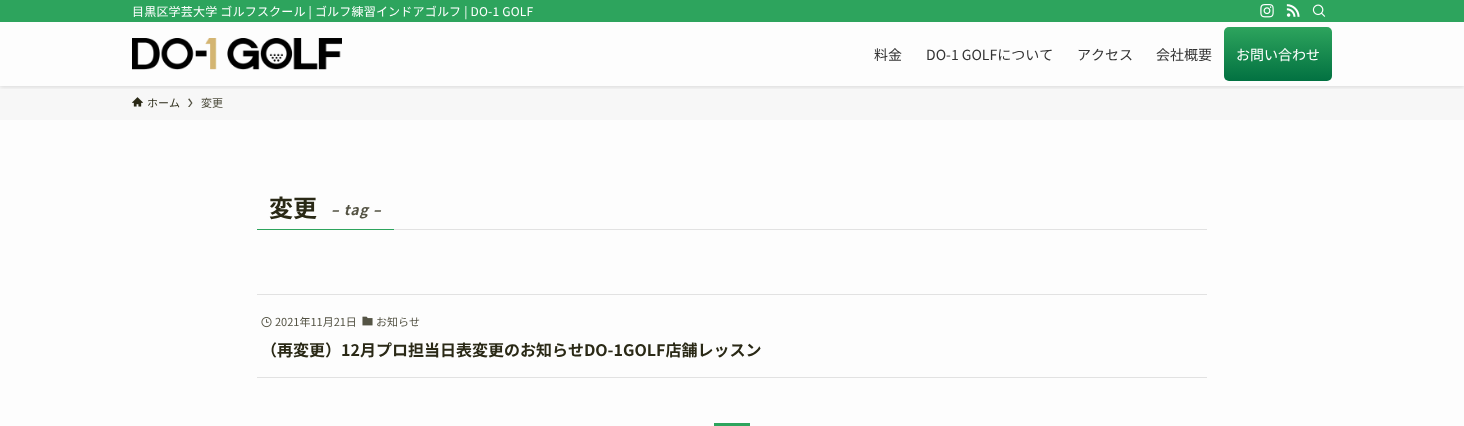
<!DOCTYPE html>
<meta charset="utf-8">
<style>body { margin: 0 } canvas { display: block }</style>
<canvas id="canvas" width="1464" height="426"></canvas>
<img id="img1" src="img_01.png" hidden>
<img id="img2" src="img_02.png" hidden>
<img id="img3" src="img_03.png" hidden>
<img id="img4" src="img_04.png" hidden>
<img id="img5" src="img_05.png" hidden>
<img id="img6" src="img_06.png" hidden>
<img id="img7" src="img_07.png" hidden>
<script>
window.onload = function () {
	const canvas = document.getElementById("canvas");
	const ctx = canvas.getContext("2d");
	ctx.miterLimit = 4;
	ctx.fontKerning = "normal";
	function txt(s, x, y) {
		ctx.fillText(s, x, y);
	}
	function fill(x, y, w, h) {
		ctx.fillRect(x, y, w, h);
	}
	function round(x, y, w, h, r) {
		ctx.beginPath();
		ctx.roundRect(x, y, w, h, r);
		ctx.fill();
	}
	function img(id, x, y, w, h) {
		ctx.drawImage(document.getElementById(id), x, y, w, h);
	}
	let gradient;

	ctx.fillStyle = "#FDFDFD";
	fill(0, 0, 1464, 426);
	ctx.fillStyle = "#F7F7F7";
	fill(0, 86, 1464, 34);
	ctx.save();
	ctx.beginPath();
	ctx.rect(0, 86, 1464, 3);
	ctx.clip();
	ctx.fillStyle = "rgba(0, 0, 0, 0.12)";
	ctx.filter = "blur(2px)";
	ctx.beginPath();
	ctx.rect(0, 1, 1464, 86);
	ctx.fill();
	ctx.filter = "none";
	ctx.restore();
	ctx.fillStyle = "#2DA45D";
	fill(0, 0, 1464, 22);
	img("img1", 1260, 4, 14, 14);
	img("img2", 1286, 4, 14, 13);
	img("img3", 1312, 4, 14, 13);
	img("img4", 132, 38, 210, 32);
	gradient = ctx.createLinearGradient(1278, 27, 1278, 81);
	gradient.addColorStop(0, "#2DA45D");
	gradient.addColorStop(1, "#027141");
	ctx.fillStyle = gradient;
	round(1224, 27, 108, 54, 5);
	img("img5", 132, 97, 11, 10);
	ctx.fillStyle = "#535243";
	ctx.beginPath();
	ctx.moveTo(189.5, 98.5);
	ctx.lineTo(188, 99);
	ctx.lineTo(191, 103);
	ctx.lineTo(188, 107);
	ctx.lineTo(189.5, 107);
	ctx.lineTo(192.5, 103);
	ctx.closePath();
	ctx.fill();
	ctx.fillStyle = "#E2E2E2";
	fill(394, 229, 813, 1);
	ctx.fillStyle = "#2DA45D";
	fill(257, 229, 137, 1);
	ctx.fillStyle = "#E2E2E2";
	fill(257, 294, 950, 1);
	fill(257, 377, 950, 1);
	img("img6", 261, 317, 11, 11);
	img("img7", 362, 316, 11, 10);
	ctx.fillStyle = "#2DA45D";
	fill(714, 423, 36, 3);
	ctx.letterSpacing = "0.2px";
	ctx.font = "12px Noto Sans JP";
	ctx.fillStyle = "#FFFFFF";
	txt("目黒区学芸大学 ゴルフスクール | ゴルフ練習インドアゴルフ | DO-1 GOLF", 132, 16);
	ctx.letterSpacing = "0px";
	ctx.font = "14px Noto Sans JP";
	ctx.fillStyle = "#333333";
	txt("料金", 874, 60);
	txt("DO-1 GOLFについて", 926, 60);
	txt("アクセス", 1077, 60);
	txt("会社概要", 1156, 60);
	ctx.fillStyle = "#FFFFFF";
	txt("お問い合わせ", 1236, 60);
	ctx.font = "11px Noto Sans JP";
	ctx.fillStyle = "#2A2916";
	txt("ホーム", 147, 107);
	ctx.fillStyle = "#535243";
	txt("変更", 201, 107);
	ctx.font = "bold 24px Noto Sans JP";
	ctx.fillStyle = "#2A2916";
	txt("変更", 269, 217);
	ctx.letterSpacing = "1px";
	ctx.font = "italic bold 14px Noto Sans JP";
	ctx.fillStyle = "#535243";
	txt("– tag –", 331, 215);
	ctx.letterSpacing = "0px";
	ctx.font = "11px Noto Sans JP";
	txt("2021年11月21日", 275, 326);
	txt("お知らせ", 376, 326);
	ctx.font = "bold 16px Noto Sans JP";
	ctx.fillStyle = "#2A2916";
	txt("（再変更）12月プロ担当日表変更のお知らせDO-1GOLF店舗レッスン", 261, 356);
};
</script>
